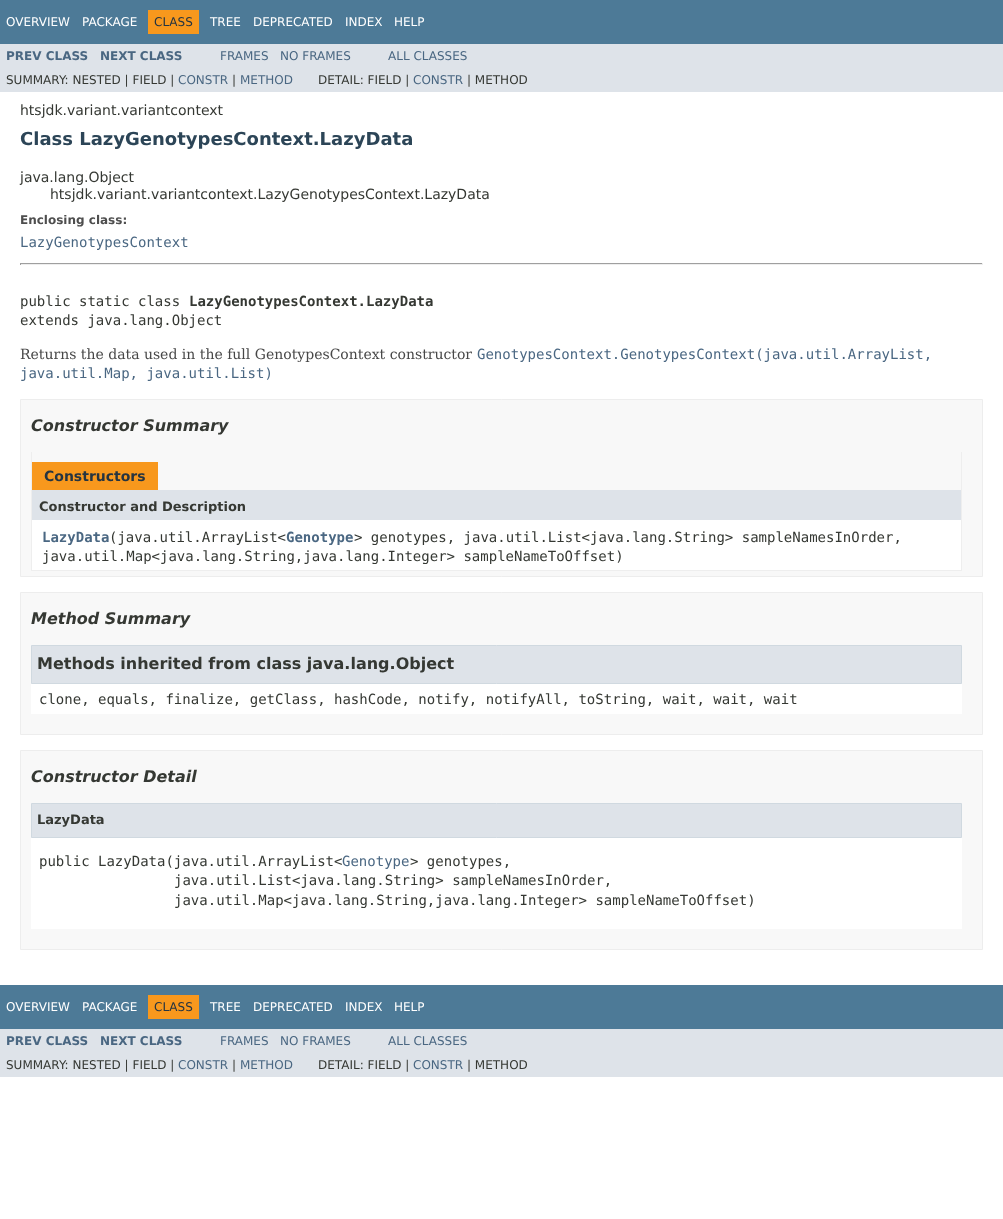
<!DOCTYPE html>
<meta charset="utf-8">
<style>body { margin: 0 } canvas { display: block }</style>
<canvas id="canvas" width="1003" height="1219"></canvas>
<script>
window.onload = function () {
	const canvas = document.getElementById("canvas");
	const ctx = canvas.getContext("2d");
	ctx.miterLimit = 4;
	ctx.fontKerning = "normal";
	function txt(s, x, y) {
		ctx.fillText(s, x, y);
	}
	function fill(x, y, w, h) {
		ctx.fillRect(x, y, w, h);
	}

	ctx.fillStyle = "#FFFFFF";
	fill(0, 0, 1003, 1219);
	ctx.fillStyle = "#4D7A97";
	fill(0, 0, 1003, 44);
	ctx.fillStyle = "#F8981D";
	fill(148, 10, 51, 24);
	ctx.fillStyle = "#DEE3E9";
	fill(0, 44, 1003, 48);
	ctx.fillStyle = "#9F9F9F";
	fill(20, 263, 963, 1);
	ctx.fillStyle = "#EEEEEE";
	fill(982, 263, 1, 2);
	fill(20, 264, 963, 1);
	ctx.fillStyle = "#9F9F9F";
	fill(20, 263, 1, 2);
	ctx.fillStyle = "#F8F8F8";
	ctx.beginPath();
	ctx.rect(20.5, 399.5, 962, 177);
	ctx.fill();
	ctx.strokeStyle = "#EDEDED";
	ctx.stroke();
	ctx.fillStyle = "#EEEEEE";
	fill(961, 452, 1, 119);
	fill(31, 570, 931, 1);
	fill(31, 452, 1, 119);
	ctx.fillStyle = "#F8981D";
	fill(32, 462, 126, 28);
	ctx.fillStyle = "#DEE3E9";
	fill(32, 490, 929, 30);
	ctx.fillStyle = "#FFFFFF";
	fill(32, 520, 929, 50);
	ctx.fillStyle = "#F8F8F8";
	ctx.beginPath();
	ctx.rect(20.5, 592.5, 962, 142);
	ctx.fill();
	ctx.stroke();
	ctx.fillStyle = "#FFFFFF";
	fill(31, 684, 931, 30);
	ctx.fillStyle = "#DEE3E9";
	ctx.beginPath();
	ctx.rect(31.5, 645.5, 930, 38);
	ctx.fill();
	ctx.strokeStyle = "#D0D9E0";
	ctx.stroke();
	ctx.fillStyle = "#F8F8F8";
	ctx.beginPath();
	ctx.rect(20.5, 750.5, 962, 199);
	ctx.fill();
	ctx.strokeStyle = "#EDEDED";
	ctx.stroke();
	ctx.fillStyle = "#FFFFFF";
	fill(31, 838, 931, 91);
	ctx.fillStyle = "#DEE3E9";
	ctx.beginPath();
	ctx.rect(31.5, 803.5, 930, 34);
	ctx.fill();
	ctx.strokeStyle = "#D0D9E0";
	ctx.stroke();
	ctx.fillStyle = "#4D7A97";
	fill(0, 985, 1003, 44);
	ctx.fillStyle = "#F8981D";
	fill(148, 995, 51, 24);
	ctx.fillStyle = "#DEE3E9";
	fill(0, 1029, 1003, 48);
	ctx.font = "12px DejaVu Sans";
	ctx.fillStyle = "#FFFFFF";
	txt("OVERVIEW", 6, 26);
	txt("PACKAGE", 82, 26);
	ctx.fillStyle = "#253441";
	txt("CLASS", 154, 26);
	ctx.fillStyle = "#FFFFFF";
	txt("TREE", 210, 26);
	txt("DEPRECATED", 253, 26);
	txt("INDEX", 345, 26);
	txt("HELP", 394, 26);
	ctx.font = "bold 12px DejaVu Sans";
	ctx.fillStyle = "#4A6782";
	txt("PREV CLASS", 6, 60);
	txt("NEXT CLASS", 100, 60);
	ctx.font = "12px DejaVu Sans";
	txt("FRAMES", 220, 60);
	txt("NO FRAMES", 280, 60);
	txt("ALL CLASSES", 388, 60);
	ctx.fillStyle = "#353833";
	txt("SUMMARY: NESTED | FIELD |", 6, 84);
	ctx.fillStyle = "#4A6782";
	txt("CONSTR", 178, 84);
	ctx.fillStyle = "#353833";
	txt("|", 232, 84);
	ctx.fillStyle = "#4A6782";
	txt("METHOD", 240, 84);
	ctx.fillStyle = "#353833";
	txt("DETAIL: FIELD |", 318, 84);
	ctx.fillStyle = "#4A6782";
	txt("CONSTR", 413, 84);
	ctx.fillStyle = "#353833";
	txt("| METHOD", 467, 84);
	ctx.font = "14px DejaVu Sans";
	txt("htsjdk.variant.variantcontext", 20, 115);
	ctx.font = "bold 18px DejaVu Sans";
	ctx.fillStyle = "#2C4557";
	txt("Class LazyGenotypesContext.LazyData", 20, 145);
	ctx.font = "14px DejaVu Sans";
	ctx.fillStyle = "#353833";
	txt("java.lang.Object", 20, 182);
	txt("htsjdk.variant.variantcontext.LazyGenotypesContext.LazyData", 50, 199);
	ctx.font = "bold 12px DejaVu Sans";
	ctx.fillStyle = "#4E4E4E";
	txt("Enclosing class:", 20, 224);
	ctx.font = "14px DejaVu Sans Mono";
	ctx.fillStyle = "#4A6782";
	txt("LazyGenotypesContext", 20, 247);
	ctx.fillStyle = "#353833";
	txt("public static class", 20, 306);
	ctx.font = "bold 14px DejaVu Sans Mono";
	txt("LazyGenotypesContext.LazyData", 189, 306);
	ctx.font = "14px DejaVu Sans Mono";
	txt("extends java.lang.Object", 20, 325);
	ctx.font = "14px DejaVu Serif";
	ctx.fillStyle = "#474747";
	txt("Returns the data used in the full GenotypesContext constructor", 20, 359);
	ctx.font = "14px DejaVu Sans Mono";
	ctx.fillStyle = "#4A6782";
	txt("GenotypesContext.GenotypesContext(java.util.ArrayList,", 477, 359);
	txt("java.util.Map, java.util.List)", 20, 378);
	ctx.font = "italic bold 16px DejaVu Sans";
	ctx.fillStyle = "#353833";
	txt("Constructor Summary", 31, 431);
	ctx.font = "bold 14px DejaVu Sans";
	ctx.fillStyle = "#253441";
	txt("Constructors", 44, 481);
	ctx.font = "bold 13px DejaVu Sans";
	ctx.fillStyle = "#353833";
	txt("Constructor and Description", 39, 511);
	ctx.font = "bold 14px DejaVu Sans Mono";
	ctx.fillStyle = "#4A6782";
	txt("LazyData", 42, 542);
	ctx.font = "14px DejaVu Sans Mono";
	ctx.fillStyle = "#353833";
	txt("(java.util.ArrayList<", 109, 542);
	ctx.font = "bold 14px DejaVu Sans Mono";
	ctx.fillStyle = "#4A6782";
	txt("Genotype", 286, 542);
	ctx.font = "14px DejaVu Sans Mono";
	ctx.fillStyle = "#353833";
	txt("> genotypes, java.util.List<java.lang.String> sampleNamesInOrder,", 354, 542);
	txt("java.util.Map<java.lang.String,java.lang.Integer> sampleNameToOffset)", 42, 561);
	ctx.font = "italic bold 16px DejaVu Sans";
	txt("Method Summary", 31, 624);
	ctx.font = "bold 16px DejaVu Sans";
	txt("Methods inherited from class java.lang.Object", 37, 669);
	ctx.font = "14px DejaVu Sans Mono";
	txt("clone, equals, finalize, getClass, hashCode, notify, notifyAll, toString, wait, wait, wait", 39, 704);
	ctx.font = "italic bold 16px DejaVu Sans";
	txt("Constructor Detail", 31, 782);
	ctx.font = "bold 13px DejaVu Sans";
	txt("LazyData", 37, 824);
	ctx.font = "14px DejaVu Sans Mono";
	txt("public LazyData(java.util.ArrayList<", 39, 866);
	ctx.fillStyle = "#4A6782";
	txt("Genotype", 342, 866);
	ctx.fillStyle = "#353833";
	txt("> genotypes,", 410, 866);
	txt("java.util.List<java.lang.String> sampleNamesInOrder,", 174, 885);
	txt("java.util.Map<java.lang.String,java.lang.Integer> sampleNameToOffset)", 174, 905);
	ctx.font = "12px DejaVu Sans";
	ctx.fillStyle = "#FFFFFF";
	txt("OVERVIEW", 6, 1011);
	txt("PACKAGE", 82, 1011);
	ctx.fillStyle = "#253441";
	txt("CLASS", 154, 1011);
	ctx.fillStyle = "#FFFFFF";
	txt("TREE", 210, 1011);
	txt("DEPRECATED", 253, 1011);
	txt("INDEX", 345, 1011);
	txt("HELP", 394, 1011);
	ctx.font = "bold 12px DejaVu Sans";
	ctx.fillStyle = "#4A6782";
	txt("PREV CLASS", 6, 1045);
	txt("NEXT CLASS", 100, 1045);
	ctx.font = "12px DejaVu Sans";
	txt("FRAMES", 220, 1045);
	txt("NO FRAMES", 280, 1045);
	txt("ALL CLASSES", 388, 1045);
	ctx.fillStyle = "#353833";
	txt("SUMMARY: NESTED | FIELD |", 6, 1069);
	ctx.fillStyle = "#4A6782";
	txt("CONSTR", 178, 1069);
	ctx.fillStyle = "#353833";
	txt("|", 232, 1069);
	ctx.fillStyle = "#4A6782";
	txt("METHOD", 240, 1069);
	ctx.fillStyle = "#353833";
	txt("DETAIL: FIELD |", 318, 1069);
	ctx.fillStyle = "#4A6782";
	txt("CONSTR", 413, 1069);
	ctx.fillStyle = "#353833";
	txt("| METHOD", 467, 1069);
};
</script>
